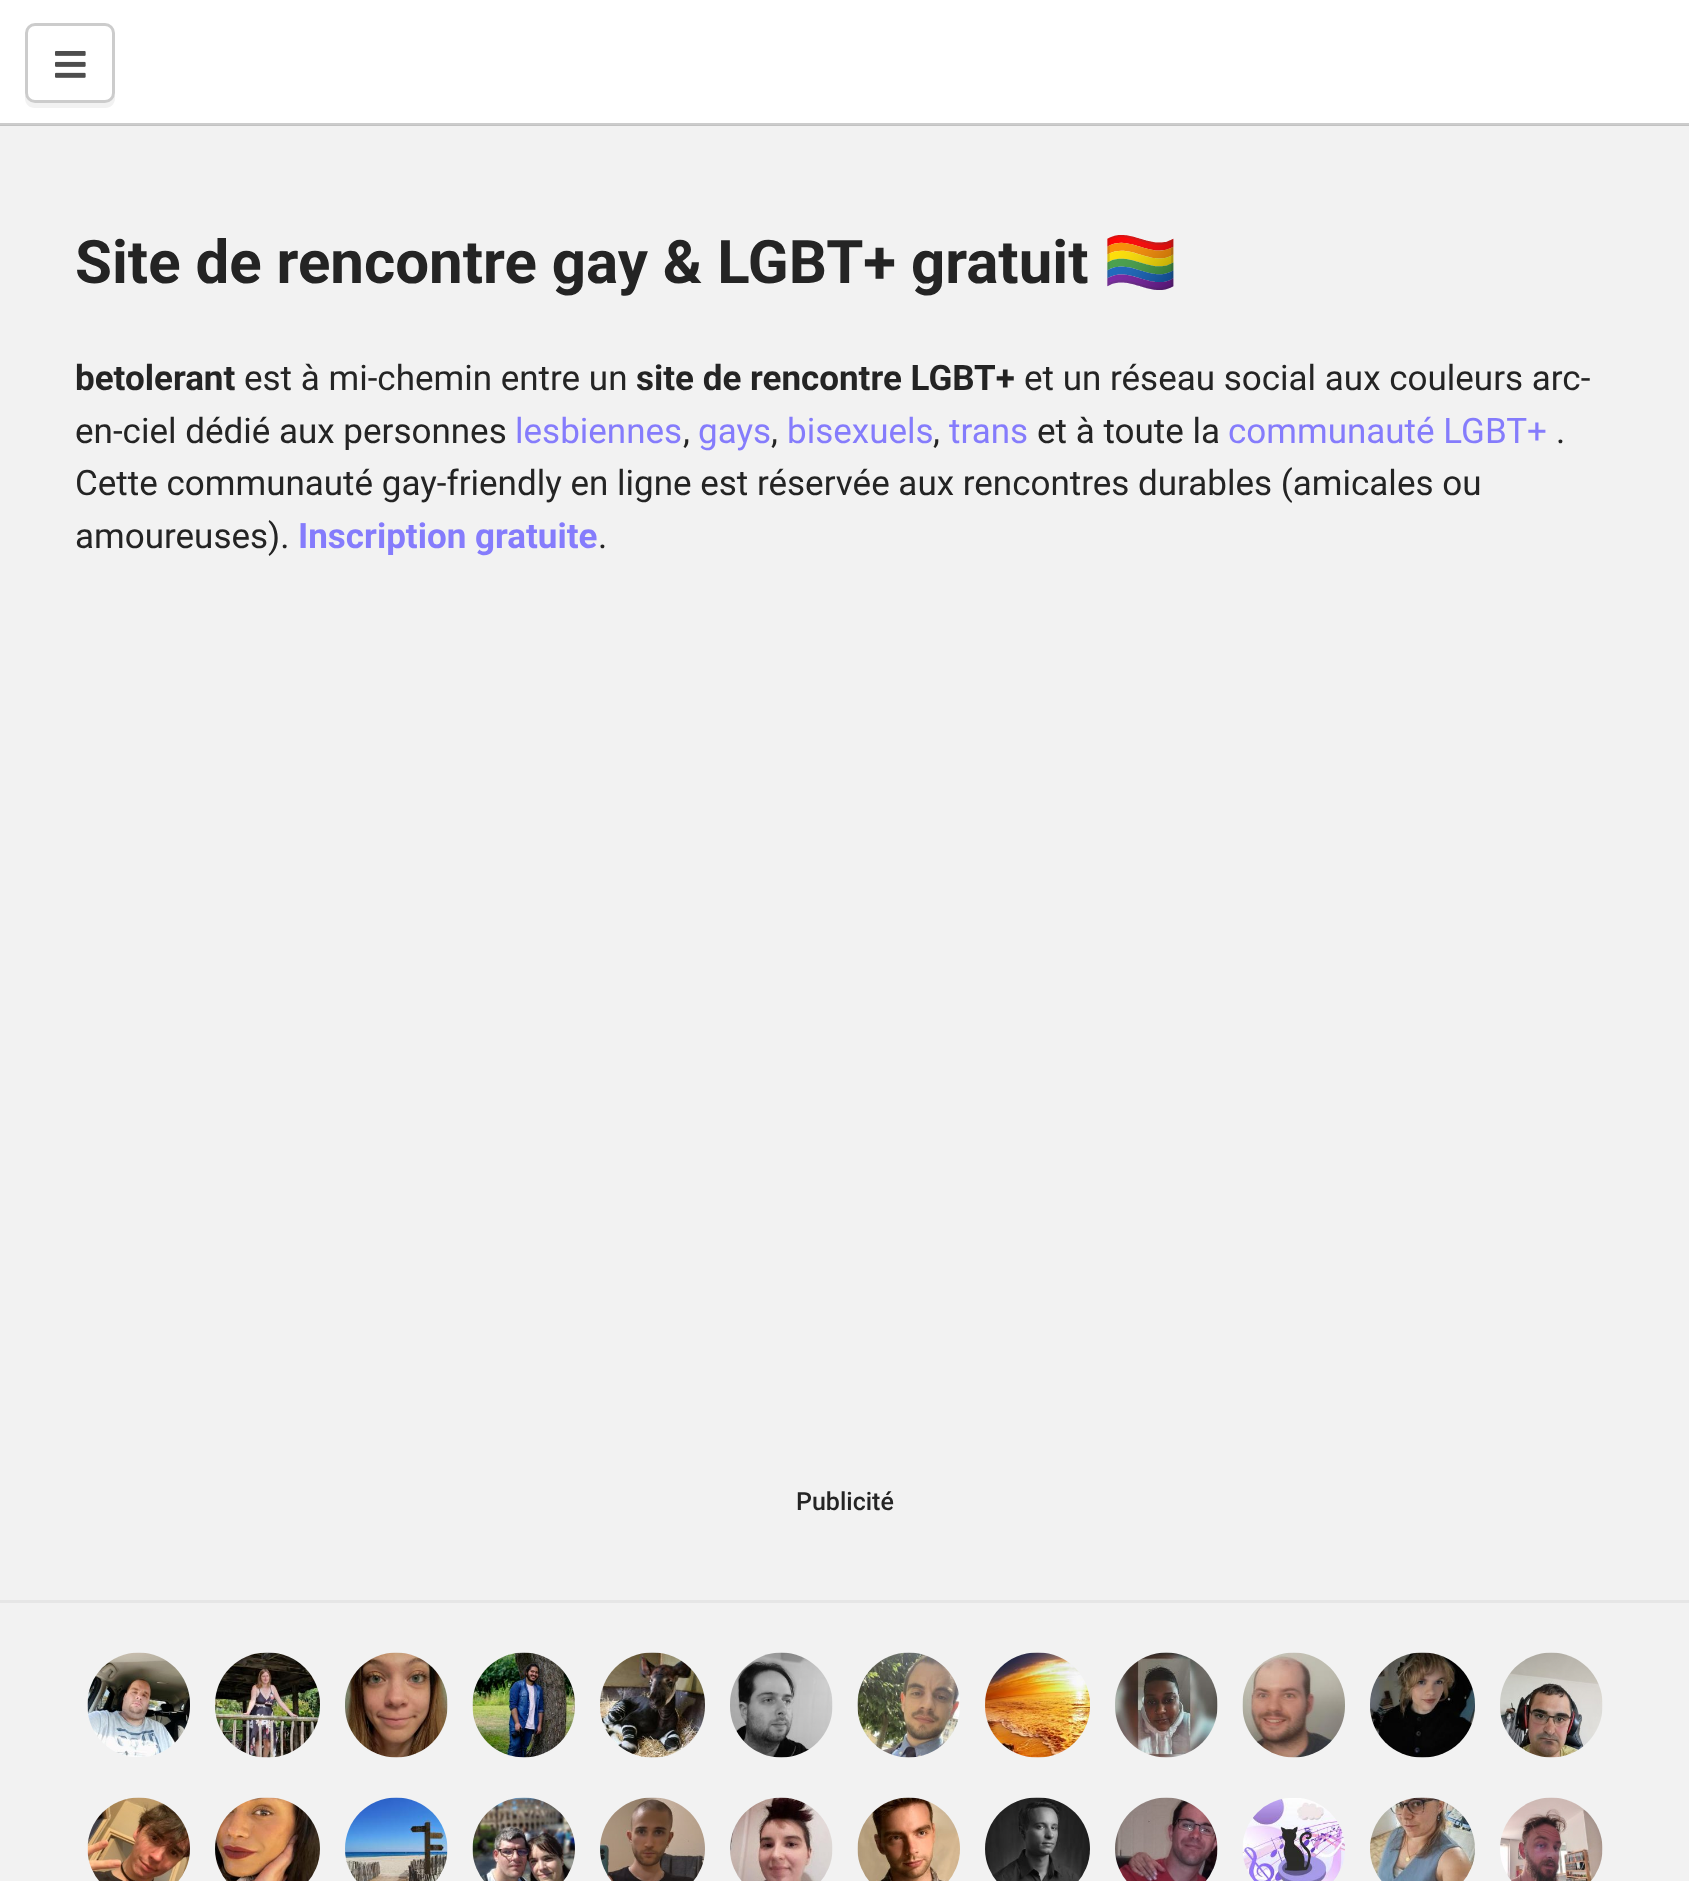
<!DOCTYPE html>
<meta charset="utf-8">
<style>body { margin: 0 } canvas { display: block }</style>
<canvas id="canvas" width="1689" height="1881"></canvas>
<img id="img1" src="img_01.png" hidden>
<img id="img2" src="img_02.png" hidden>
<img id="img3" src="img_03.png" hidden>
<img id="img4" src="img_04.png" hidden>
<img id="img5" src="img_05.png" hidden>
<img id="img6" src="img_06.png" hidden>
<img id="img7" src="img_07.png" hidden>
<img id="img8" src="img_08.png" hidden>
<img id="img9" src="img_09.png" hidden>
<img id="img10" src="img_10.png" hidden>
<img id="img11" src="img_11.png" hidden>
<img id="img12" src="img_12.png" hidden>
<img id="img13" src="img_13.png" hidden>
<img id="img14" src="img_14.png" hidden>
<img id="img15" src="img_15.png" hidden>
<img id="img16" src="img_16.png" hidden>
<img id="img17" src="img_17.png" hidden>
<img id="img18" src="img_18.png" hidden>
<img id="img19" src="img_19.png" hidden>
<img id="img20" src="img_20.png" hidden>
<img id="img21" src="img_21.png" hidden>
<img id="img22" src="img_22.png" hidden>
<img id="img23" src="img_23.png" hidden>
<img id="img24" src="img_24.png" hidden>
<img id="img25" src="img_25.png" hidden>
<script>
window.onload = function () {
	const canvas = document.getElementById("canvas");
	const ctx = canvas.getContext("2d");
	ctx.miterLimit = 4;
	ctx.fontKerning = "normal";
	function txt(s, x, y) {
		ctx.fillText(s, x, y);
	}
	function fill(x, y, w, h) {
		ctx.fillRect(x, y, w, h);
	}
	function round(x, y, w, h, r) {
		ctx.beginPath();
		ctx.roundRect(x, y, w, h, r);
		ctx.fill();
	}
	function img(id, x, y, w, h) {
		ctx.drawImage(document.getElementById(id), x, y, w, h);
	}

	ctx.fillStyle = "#F2F2F2";
	fill(0, 0, 1689, 1881);
	ctx.fillStyle = "#C2C2C2";
	fill(0, 125, 1689, 1);
	ctx.fillStyle = "#FFFFFF";
	fill(0, 0, 1689, 123);
	ctx.fillStyle = "#CCCCCC";
	fill(0, 123, 1689, 2);
	ctx.fillStyle = "#F2F2F2";
	ctx.beginPath();
	ctx.moveTo(25, 92);
	ctx.lineTo(25, 98);
	ctx.bezierCurveTo(25, 104, 29, 108, 35, 108);
	ctx.lineTo(105, 108);
	ctx.bezierCurveTo(111, 108, 115, 104, 115, 98);
	ctx.lineTo(115, 92);
	ctx.bezierCurveTo(115, 98, 111, 102, 105, 102);
	ctx.lineTo(35, 102);
	ctx.bezierCurveTo(29, 102, 25, 98, 25, 92);
	ctx.closePath();
	ctx.fill();
	ctx.fillStyle = "#FFFFFF";
	round(25, 23, 90, 80, 10);
	ctx.beginPath();
	ctx.roundRect(26.5, 24.5, 87, 77, 8.5);
	ctx.strokeStyle = "rgba(0, 0, 0, 0.2)";
	ctx.lineWidth = 3;
	ctx.stroke();
	img("img1", 55, 51, 31, 27);
	ctx.fillStyle = "#E6E6E6";
	fill(0, 1600, 1689, 3);
	img("img2", 87, 1652, 103, 105);
	img("img3", 215, 1652, 105, 106);
	img("img4", 345, 1652, 103, 106);
	img("img5", 472, 1652, 103, 106);
	img("img6", 600, 1652, 105, 106);
	img("img7", 730, 1652, 103, 106);
	img("img8", 857, 1652, 103, 106);
	img("img9", 985, 1652, 105, 106);
	img("img10", 1115, 1652, 103, 106);
	img("img11", 1242, 1652, 103, 106);
	img("img12", 1370, 1652, 105, 106);
	img("img13", 1500, 1652, 103, 106);
	img("img14", 87, 1797, 103, 84);
	img("img15", 215, 1797, 105, 84);
	img("img16", 345, 1797, 103, 84);
	img("img17", 472, 1797, 103, 84);
	img("img18", 600, 1797, 105, 84);
	img("img19", 730, 1797, 103, 84);
	img("img20", 857, 1797, 103, 84);
	img("img21", 985, 1797, 105, 84);
	img("img22", 1115, 1797, 103, 84);
	img("img23", 1242, 1798, 103, 83);
	img("img24", 1370, 1797, 105, 84);
	img("img25", 1500, 1797, 103, 84);
	ctx.font = "bold 60px Roboto";
	ctx.fillStyle = "#242424";
	txt("Site de rencontre gay & LGBT+ gratuit", 75, 283);
	ctx.font = "bold 60px Noto Color Emoji";
	txt("🏳️‍🌈", 1103, 283);
	ctx.font = "bold 35px Roboto";
	txt("betolerant", 75, 390);
	ctx.font = "35px Roboto";
	txt("est à mi-chemin entre un", 244, 390);
	ctx.font = "bold 35px Roboto";
	txt("site de rencontre LGBT+", 636, 390);
	ctx.font = "35px Roboto";
	txt("et un réseau social aux couleurs arc-", 1024, 390);
	txt("en-ciel dédié aux personnes", 75, 443);
	ctx.fillStyle = "#857CFC";
	txt("lesbiennes", 515, 443);
	ctx.fillStyle = "#242424";
	txt(",", 683, 443);
	ctx.fillStyle = "#857CFC";
	txt("gays", 698, 443);
	ctx.fillStyle = "#242424";
	txt(",", 771, 443);
	ctx.fillStyle = "#857CFC";
	txt("bisexuels", 787, 443);
	ctx.fillStyle = "#242424";
	txt(",", 933, 443);
	ctx.fillStyle = "#857CFC";
	txt("trans", 949, 443);
	ctx.fillStyle = "#242424";
	txt("et à toute la", 1037, 443);
	ctx.fillStyle = "#857CFC";
	txt("communauté LGBT+", 1228, 443);
	ctx.fillStyle = "#242424";
	txt(".", 1556, 443);
	txt("Cette communauté gay-friendly en ligne est réservée aux rencontres durables (amicales ou", 75, 495);
	txt("amoureuses).", 75, 548);
	ctx.font = "bold 35px Roboto";
	ctx.fillStyle = "#857CFC";
	txt("Inscription gratuite", 298, 548);
	ctx.font = "35px Roboto";
	ctx.fillStyle = "#242424";
	txt(".", 598, 548);
	ctx.font = "500 25px Roboto";
	txt("Publicité", 796, 1510);
};
</script>
